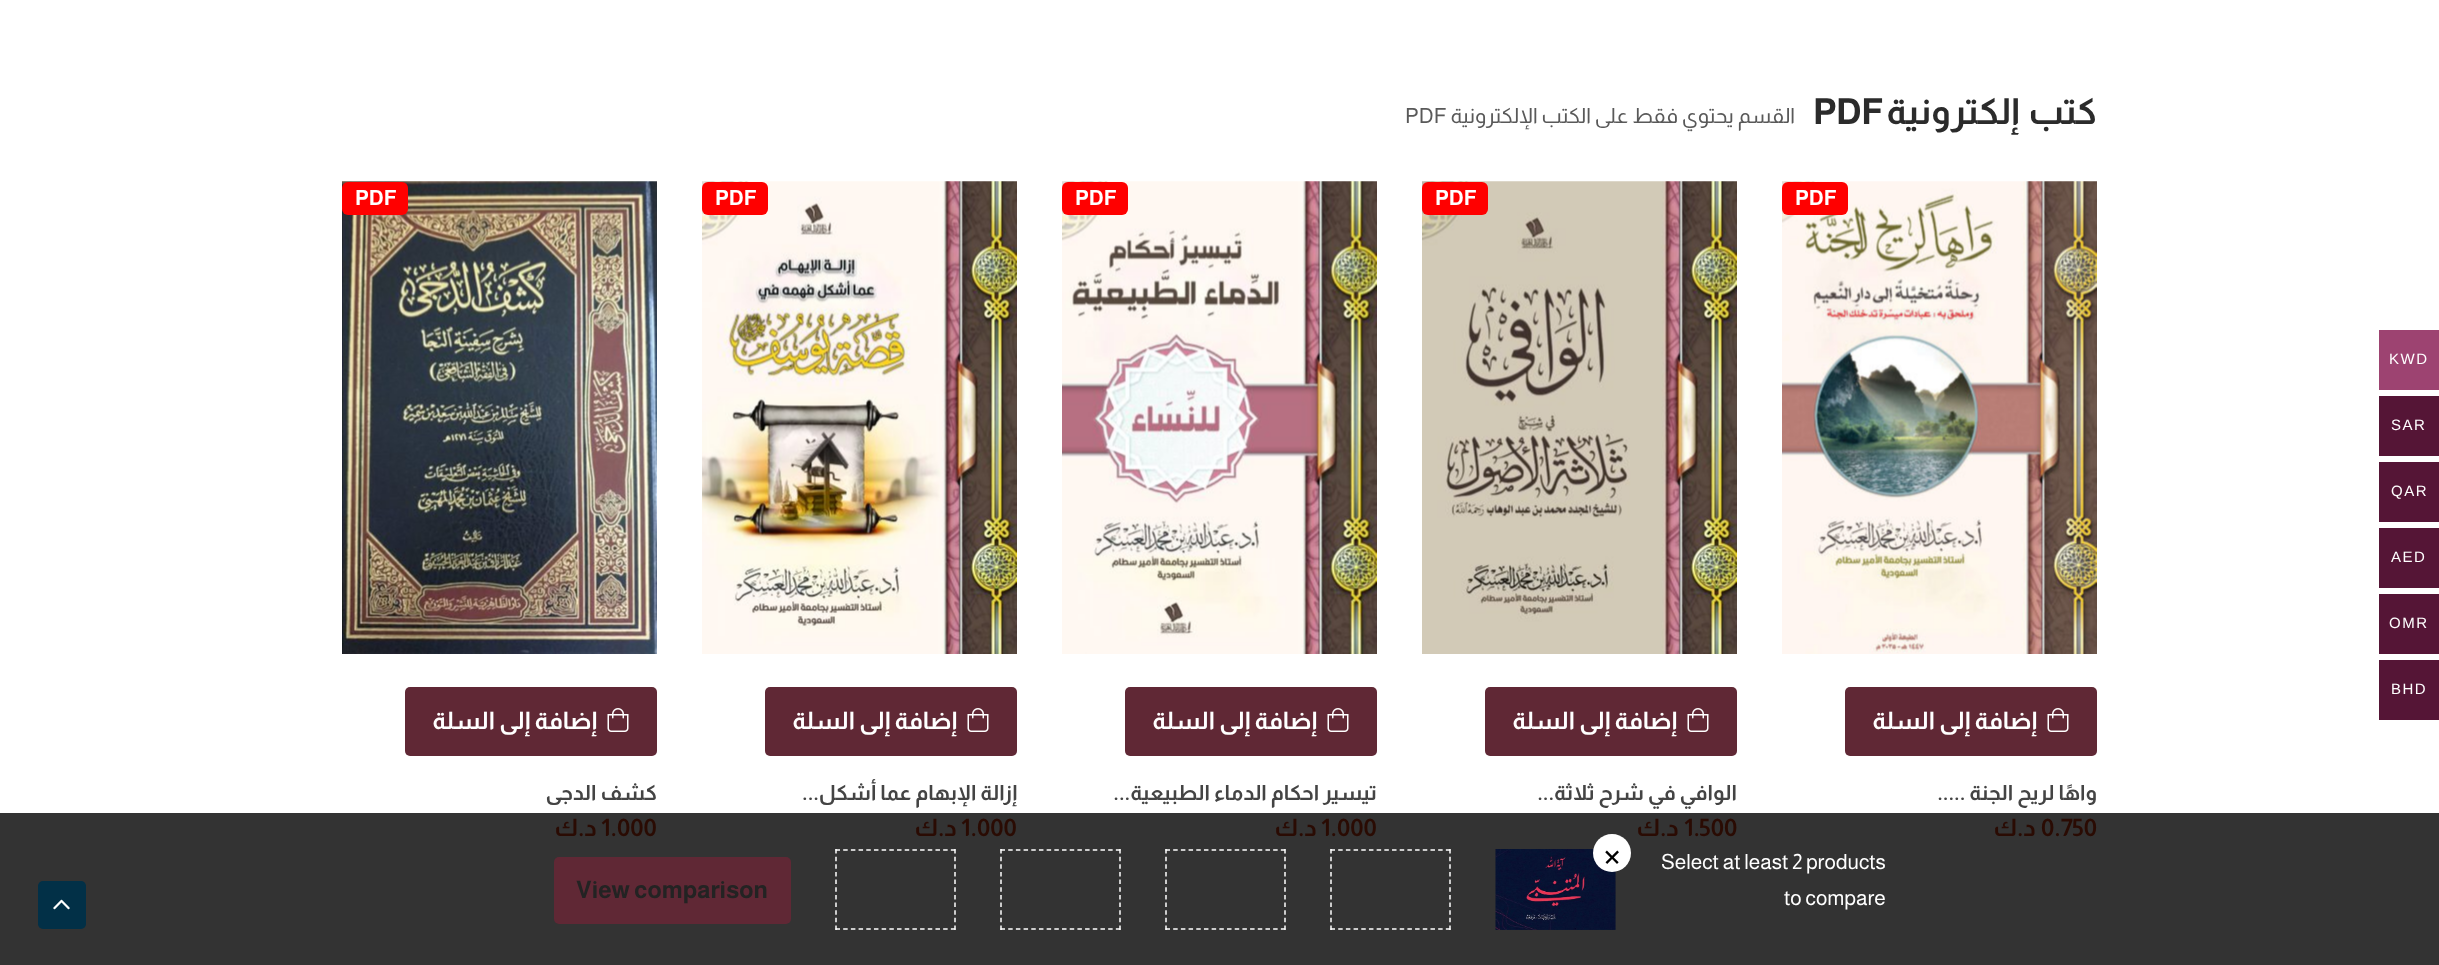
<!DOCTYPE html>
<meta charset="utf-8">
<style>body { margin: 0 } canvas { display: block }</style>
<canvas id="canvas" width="2439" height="965"></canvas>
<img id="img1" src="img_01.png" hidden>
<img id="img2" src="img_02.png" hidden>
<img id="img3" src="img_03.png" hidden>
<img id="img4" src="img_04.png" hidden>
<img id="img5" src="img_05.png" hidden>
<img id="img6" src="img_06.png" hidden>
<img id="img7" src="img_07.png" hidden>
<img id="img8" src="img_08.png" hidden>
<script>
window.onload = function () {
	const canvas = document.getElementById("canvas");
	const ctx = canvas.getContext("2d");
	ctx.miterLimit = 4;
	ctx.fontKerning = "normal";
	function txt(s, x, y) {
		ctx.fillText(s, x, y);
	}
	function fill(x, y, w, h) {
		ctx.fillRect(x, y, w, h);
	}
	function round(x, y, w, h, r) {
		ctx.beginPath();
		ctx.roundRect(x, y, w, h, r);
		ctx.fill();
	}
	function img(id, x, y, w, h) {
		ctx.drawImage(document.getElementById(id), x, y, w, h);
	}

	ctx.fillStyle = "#FFFFFF";
	fill(0, 0, 2439, 965);
	ctx.fillStyle = "#333333";
	fill(0, 813, 2439, 152);
	ctx.fillStyle = "#9D4371";
	fill(2379, 330, 60, 60);
	ctx.fillStyle = "#551536";
	fill(2379, 396, 60, 60);
	fill(2379, 462, 60, 60);
	fill(2379, 528, 60, 60);
	fill(2379, 594, 60, 60);
	fill(2379, 660, 60, 60);
	img("img1", 1782, 181, 315, 473);
	ctx.fillStyle = "#FF0000";
	round(1782, 182, 66, 33, 6);
	ctx.fillStyle = "#602835";
	round(1845, 687, 252, 69, 5);
	img("img2", 2047, 708, 22, 24);
	img("img3", 1422, 181, 315, 473);
	ctx.fillStyle = "#FF0000";
	round(1422, 182, 66, 33, 6);
	ctx.fillStyle = "#602835";
	round(1485, 687, 252, 69, 5);
	img("img2", 1687, 708, 22, 24);
	img("img4", 1062, 181, 315, 473);
	ctx.fillStyle = "#FF0000";
	round(1062, 182, 66, 33, 6);
	ctx.fillStyle = "#602835";
	round(1125, 687, 252, 69, 5);
	img("img2", 1327, 708, 22, 24);
	img("img5", 702, 181, 315, 473);
	ctx.fillStyle = "#FF0000";
	round(702, 182, 66, 33, 6);
	ctx.fillStyle = "#602835";
	round(765, 687, 252, 69, 5);
	img("img2", 967, 708, 22, 24);
	img("img6", 342, 181, 315, 473);
	ctx.fillStyle = "#FF0000";
	round(342, 182, 66, 33, 6);
	ctx.fillStyle = "#602835";
	round(405, 687, 252, 69, 5);
	img("img2", 607, 708, 22, 24);
	ctx.fillStyle = "#023047";
	round(38, 881, 48, 48, 5);
	img("img7", 53, 899, 17, 11);
	img("img8", 1495, 849, 121, 81);
	ctx.fillStyle = "#FFFFFF";
	ctx.beginPath();
	ctx.arc(1612, 853, 19, 0, Math.PI * 2);
	ctx.fill();
	ctx.beginPath();
	ctx.moveTo(1330.5, 850);
	ctx.lineTo(1450.5, 850);
	ctx.strokeStyle = "#FFFFFF";
	ctx.lineWidth = 1.5;
	ctx.setLineDash([4.5, 3.19]);
	ctx.stroke();
	ctx.beginPath();
	ctx.moveTo(1450, 849);
	ctx.lineTo(1450, 930);
	ctx.setLineDash([4.5, 3.15]);
	ctx.stroke();
	ctx.beginPath();
	ctx.moveTo(1330.5, 929);
	ctx.lineTo(1450.5, 929);
	ctx.setLineDash([4.5, 3.19]);
	ctx.stroke();
	ctx.beginPath();
	ctx.moveTo(1331, 849);
	ctx.lineTo(1331, 930);
	ctx.setLineDash([4.5, 3.15]);
	ctx.stroke();
	ctx.beginPath();
	ctx.moveTo(1165.5, 850);
	ctx.lineTo(1285.5, 850);
	ctx.setLineDash([4.5, 3.19]);
	ctx.stroke();
	ctx.beginPath();
	ctx.moveTo(1285, 849);
	ctx.lineTo(1285, 930);
	ctx.setLineDash([4.5, 3.15]);
	ctx.stroke();
	ctx.beginPath();
	ctx.moveTo(1165.5, 929);
	ctx.lineTo(1285.5, 929);
	ctx.setLineDash([4.5, 3.19]);
	ctx.stroke();
	ctx.beginPath();
	ctx.moveTo(1166, 849);
	ctx.lineTo(1166, 930);
	ctx.setLineDash([4.5, 3.15]);
	ctx.stroke();
	ctx.beginPath();
	ctx.moveTo(1000.5, 850);
	ctx.lineTo(1120.5, 850);
	ctx.setLineDash([4.5, 3.19]);
	ctx.stroke();
	ctx.beginPath();
	ctx.moveTo(1120, 849);
	ctx.lineTo(1120, 930);
	ctx.setLineDash([4.5, 3.15]);
	ctx.stroke();
	ctx.beginPath();
	ctx.moveTo(1000.5, 929);
	ctx.lineTo(1120.5, 929);
	ctx.setLineDash([4.5, 3.19]);
	ctx.stroke();
	ctx.beginPath();
	ctx.moveTo(1001, 849);
	ctx.lineTo(1001, 930);
	ctx.setLineDash([4.5, 3.15]);
	ctx.stroke();
	ctx.beginPath();
	ctx.moveTo(835.5, 850);
	ctx.lineTo(955.5, 850);
	ctx.setLineDash([4.5, 3.19]);
	ctx.stroke();
	ctx.beginPath();
	ctx.moveTo(955, 849);
	ctx.lineTo(955, 930);
	ctx.setLineDash([4.5, 3.15]);
	ctx.stroke();
	ctx.beginPath();
	ctx.moveTo(835.5, 929);
	ctx.lineTo(955.5, 929);
	ctx.setLineDash([4.5, 3.19]);
	ctx.stroke();
	ctx.beginPath();
	ctx.moveTo(836, 849);
	ctx.lineTo(836, 930);
	ctx.setLineDash([4.5, 3.15]);
	ctx.stroke();
	ctx.fillStyle = "#602835";
	round(554, 857, 237, 67, 5);
	ctx.letterSpacing = "1.5px";
	ctx.font = "15px Liberation Sans";
	ctx.fillStyle = "#FFFFFF";
	txt("KWD", 2389, 364);
	txt("SAR", 2391, 430);
	txt("QAR", 2391, 496);
	txt("AED", 2391, 562);
	txt("OMR", 2389, 628);
	txt("BHD", 2391, 694);
	ctx.letterSpacing = "-0.5px";
	ctx.wordSpacing = "3px";
	ctx.direction = "rtl";
	ctx.font = "bold 36px Almarai";
	ctx.fillStyle = "#2B2B2B";
	txt("كتب إلكترونية", 2097, 124);
	ctx.wordSpacing = "0px";
	ctx.direction = "ltr";
	txt("PDF", 1813, 124);
	ctx.letterSpacing = "0px";
	ctx.direction = "rtl";
	ctx.font = "21px Almarai";
	ctx.fillStyle = "#595959";
	txt("القسم يحتوي فقط على الكتب الإلكترونية", 1795, 123);
	ctx.direction = "ltr";
	txt("PDF", 1405, 123);
	ctx.font = "bold 21px Almarai";
	ctx.fillStyle = "#FFFFFF";
	txt("PDF", 1795, 205);
	ctx.direction = "rtl";
	ctx.font = "bold 24px Almarai";
	txt("إضافة إلى السلة", 2037, 729);
	ctx.font = "bold 21px Almarai";
	ctx.fillStyle = "#444444";
	txt("واهًا لريح الجنة .....", 2097, 800);
	ctx.direction = "ltr";
	ctx.font = "bold 24px Almarai";
	ctx.fillStyle = "#2A0B03";
	txt("0.750", 2041, 836);
	ctx.direction = "rtl";
	txt("د.ك", 2036, 836);
	ctx.direction = "ltr";
	ctx.font = "bold 21px Almarai";
	ctx.fillStyle = "#FFFFFF";
	txt("PDF", 1435, 205);
	ctx.direction = "rtl";
	ctx.font = "bold 24px Almarai";
	txt("إضافة إلى السلة", 1677, 729);
	ctx.font = "bold 21px Almarai";
	ctx.fillStyle = "#444444";
	txt("الوافي في شرح ثلاثة...", 1737, 800);
	ctx.direction = "ltr";
	ctx.font = "bold 24px Almarai";
	ctx.fillStyle = "#2A0B03";
	txt("1.500", 1684, 836);
	ctx.direction = "rtl";
	txt("د.ك", 1679, 836);
	ctx.direction = "ltr";
	ctx.font = "bold 21px Almarai";
	ctx.fillStyle = "#FFFFFF";
	txt("PDF", 1075, 205);
	ctx.direction = "rtl";
	ctx.font = "bold 24px Almarai";
	txt("إضافة إلى السلة", 1317, 729);
	ctx.font = "bold 21px Almarai";
	ctx.fillStyle = "#444444";
	txt("تيسير احكام الدماء الطبيعية...", 1377, 800);
	ctx.direction = "ltr";
	ctx.font = "bold 24px Almarai";
	ctx.fillStyle = "#2A0B03";
	txt("1.000", 1321, 836);
	ctx.direction = "rtl";
	txt("د.ك", 1317, 836);
	ctx.direction = "ltr";
	ctx.font = "bold 21px Almarai";
	ctx.fillStyle = "#FFFFFF";
	txt("PDF", 715, 205);
	ctx.direction = "rtl";
	ctx.font = "bold 24px Almarai";
	txt("إضافة إلى السلة", 957, 729);
	ctx.font = "bold 21px Almarai";
	ctx.fillStyle = "#444444";
	txt("إزالة الإبهام عما أشكل...", 1017, 800);
	ctx.direction = "ltr";
	ctx.font = "bold 24px Almarai";
	ctx.fillStyle = "#2A0B03";
	txt("1.000", 961, 836);
	ctx.direction = "rtl";
	txt("د.ك", 957, 836);
	ctx.direction = "ltr";
	ctx.font = "bold 21px Almarai";
	ctx.fillStyle = "#FFFFFF";
	txt("PDF", 355, 205);
	ctx.direction = "rtl";
	ctx.font = "bold 24px Almarai";
	txt("إضافة إلى السلة", 597, 729);
	ctx.font = "bold 21px Almarai";
	ctx.fillStyle = "#444444";
	txt("كشف الدجى", 657, 800);
	ctx.direction = "ltr";
	ctx.font = "bold 24px Almarai";
	ctx.fillStyle = "#2A0B03";
	txt("1.000", 601, 836);
	ctx.direction = "rtl";
	txt("د.ك", 597, 836);
	ctx.direction = "ltr";
	ctx.font = "21px Almarai";
	ctx.fillStyle = "#FFFFFF";
	txt("Select at least 2 products", 1661, 869);
	txt("to compare", 1784, 905);
	ctx.font = "38px Almarai";
	ctx.fillStyle = "#000000";
	txt("×", 1604, 866);
	ctx.font = "bold 24px Almarai";
	ctx.fillStyle = "#232323";
	txt("View comparison", 576, 898);
};
</script>
